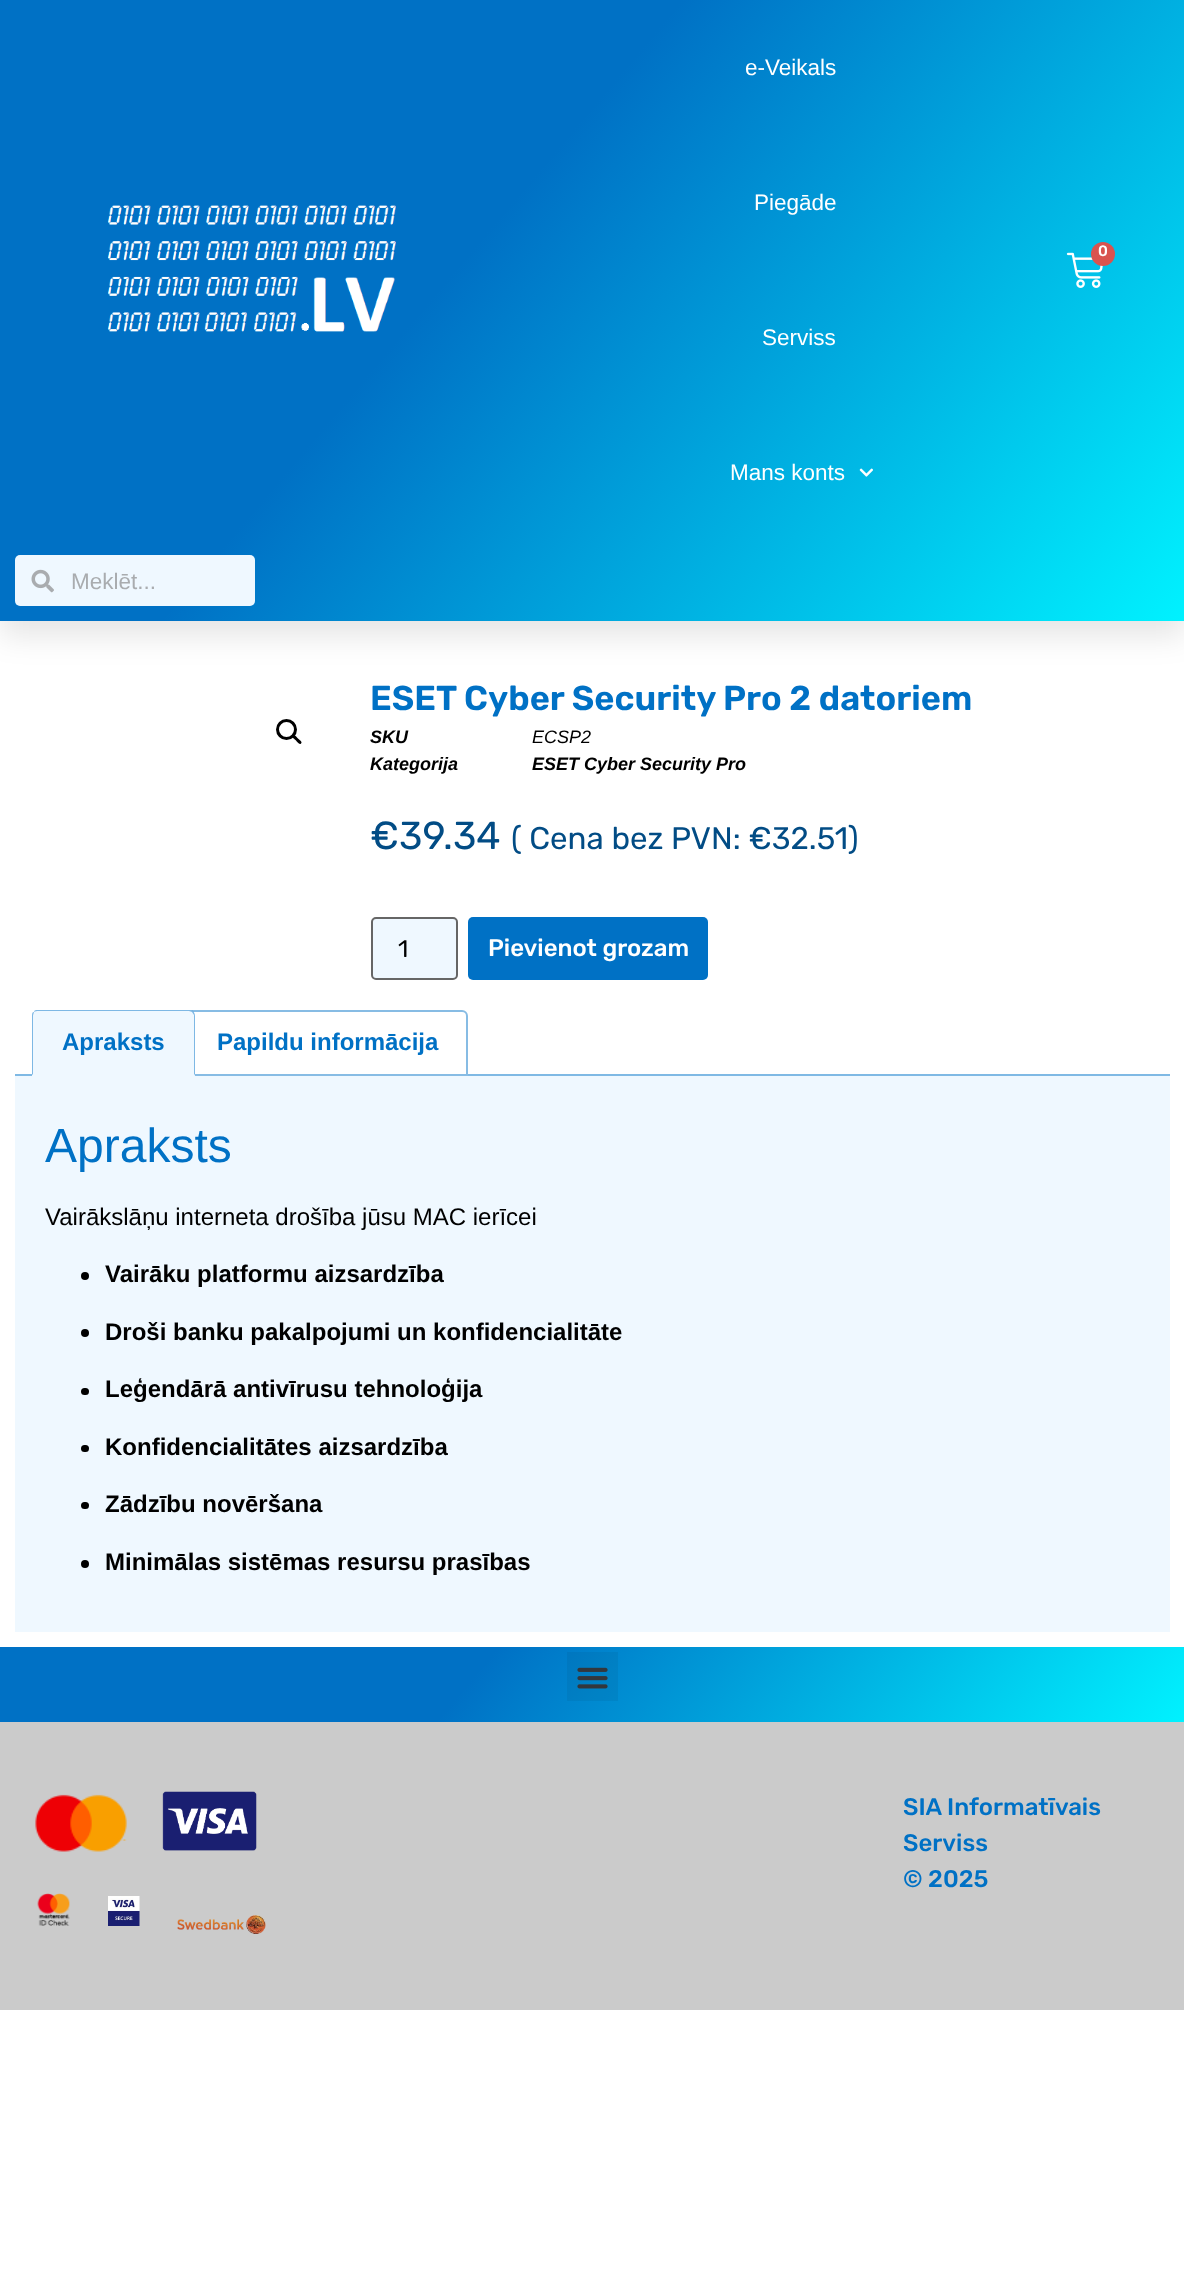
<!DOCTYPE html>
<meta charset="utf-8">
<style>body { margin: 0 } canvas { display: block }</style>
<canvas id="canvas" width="1184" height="2283"></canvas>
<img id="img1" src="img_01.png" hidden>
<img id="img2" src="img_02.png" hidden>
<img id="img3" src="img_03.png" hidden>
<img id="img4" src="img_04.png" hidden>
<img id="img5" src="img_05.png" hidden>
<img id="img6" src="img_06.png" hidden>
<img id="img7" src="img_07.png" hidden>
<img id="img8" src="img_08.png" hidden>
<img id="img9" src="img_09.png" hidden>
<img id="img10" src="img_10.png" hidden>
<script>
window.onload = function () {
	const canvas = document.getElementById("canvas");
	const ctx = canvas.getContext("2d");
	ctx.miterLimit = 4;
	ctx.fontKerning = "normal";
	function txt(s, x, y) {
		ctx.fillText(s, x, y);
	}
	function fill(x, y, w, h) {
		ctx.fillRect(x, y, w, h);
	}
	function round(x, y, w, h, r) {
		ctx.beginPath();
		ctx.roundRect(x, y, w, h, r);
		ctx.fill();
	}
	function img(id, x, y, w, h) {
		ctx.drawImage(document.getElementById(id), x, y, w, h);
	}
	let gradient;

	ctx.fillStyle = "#FFFFFF";
	fill(0, 0, 1184, 2283);
	ctx.fillStyle = "rgba(0, 0, 0, 0.1)";
	ctx.filter = "blur(15px)";
	ctx.beginPath();
	ctx.rect(0, 15, 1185, 621);
	ctx.fill();
	ctx.filter = "none";
	gradient = ctx.createLinearGradient(92, -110, 1093, 731);
	gradient.addColorStop(0.4, "#0071C5");
	gradient.addColorStop(1, "#00F2FF");
	ctx.fillStyle = gradient;
	fill(0, 0, 1184, 621);
	img("img1", 107, 205, 289, 127);
	img("img2", 859, 468, 14, 9);
	img("img3", 1066, 252, 37, 36);
	ctx.fillStyle = "#D9534F";
	ctx.beginPath();
	ctx.arc(1103, 254, 12, 0, Math.PI * 2);
	ctx.fill();
	ctx.fillStyle = "#EFF8FF";
	round(15, 555, 240, 51, 5);
	img("img4", 31, 569, 23, 24);
	ctx.beginPath();
	ctx.arc(286.5, 729.5, 9, 0, Math.PI * 2);
	ctx.strokeStyle = "#000000";
	ctx.lineWidth = 3;
	ctx.stroke();
	ctx.fillStyle = "#000000";
	ctx.beginPath();
	ctx.moveTo(292.5, 735.5);
	ctx.bezierCurveTo(294.5, 733.5, 297, 737.5, 298, 738.5);
	ctx.bezierCurveTo(299, 739.5, 303, 742, 301, 743.5);
	ctx.bezierCurveTo(299.5, 745.5, 297, 741.5, 296, 740.5);
	ctx.bezierCurveTo(295, 739.5, 291, 737, 292.5, 735.5);
	ctx.closePath();
	ctx.fill();
	ctx.fillStyle = "#EFF8FF";
	ctx.beginPath();
	ctx.roundRect(372, 918, 85, 61, 4);
	ctx.fill();
	ctx.strokeStyle = "#666666";
	ctx.lineWidth = 2;
	ctx.stroke();
	ctx.fillStyle = "#0071C5";
	round(468, 917, 240, 63, 5);
	ctx.fillStyle = "#7FB9E4";
	fill(15, 1074, 1155, 2);
	ctx.fillStyle = "#FFFFFF";
	ctx.beginPath();
	ctx.roundRect(187, 1011, 280, 64, [5, 5, 0, 0]);
	ctx.fill();
	ctx.strokeStyle = "#87BCE4";
	ctx.stroke();
	ctx.fillStyle = "#EFF8FF";
	ctx.beginPath();
	ctx.roundRect(32, 1010, 163, 66, [6, 6, 0, 0]);
	ctx.fill();
	ctx.fillStyle = "rgba(0, 113, 197, 0.47)";
	ctx.beginPath();
	ctx.moveTo(38, 1010);
	ctx.bezierCurveTo(36, 1010, 34, 1010, 34, 1012);
	ctx.bezierCurveTo(35, 1011, 37, 1011, 38, 1011);
	ctx.lineTo(189, 1011);
	ctx.lineTo(192, 1012);
	ctx.lineTo(193, 1011);
	ctx.bezierCurveTo(192, 1010, 190, 1010, 189, 1010);
	ctx.closePath();
	ctx.fill();
	ctx.beginPath();
	ctx.moveTo(193, 1011);
	ctx.bezierCurveTo(194, 1012, 195, 1014, 195, 1016);
	ctx.lineTo(195, 1076);
	ctx.lineTo(194, 1074);
	ctx.lineTo(194, 1015);
	ctx.lineTo(192, 1012);
	ctx.closePath();
	ctx.fill();
	ctx.fillStyle = "#EFF8FF";
	ctx.beginPath();
	ctx.moveTo(195, 1076);
	ctx.lineTo(32, 1076);
	ctx.lineTo(33, 1074);
	ctx.lineTo(194, 1074);
	ctx.closePath();
	ctx.fill();
	ctx.fillStyle = "rgba(0, 113, 197, 0.47)";
	ctx.beginPath();
	ctx.moveTo(34, 1012);
	ctx.bezierCurveTo(32, 1012, 32, 1014, 32, 1016);
	ctx.lineTo(32, 1075);
	ctx.lineTo(33, 1074);
	ctx.lineTo(33, 1016);
	ctx.bezierCurveTo(33, 1014, 34, 1013, 34, 1012);
	ctx.closePath();
	ctx.fill();
	ctx.fillStyle = "#EFF8FF";
	fill(15, 1076, 1155, 556);
	ctx.fillStyle = "#000000";
	ctx.beginPath();
	ctx.arc(85, 1276, 4, 0, Math.PI * 2);
	ctx.fill();
	ctx.beginPath();
	ctx.arc(85, 1333, 4, 0, Math.PI * 2);
	ctx.fill();
	round(81, 1388, 8, 7, 3.5);
	round(81, 1445, 8, 7, 3.5);
	round(81, 1502, 8, 7, 3.5);
	ctx.beginPath();
	ctx.arc(85, 1564, 4, 0, Math.PI * 2);
	ctx.fill();
	gradient = ctx.createLinearGradient(226, 1377, 959, 1992);
	gradient.addColorStop(0.4, "#0071C5");
	gradient.addColorStop(1, "#00F2FF");
	ctx.fillStyle = gradient;
	fill(0, 1647, 1184, 75);
	ctx.fillStyle = "rgba(0, 0, 0, 0.05)";
	fill(567, 1652, 51, 49);
	img("img5", 577, 1667, 31, 22);
	ctx.fillStyle = "#CBCBCB";
	fill(0, 1722, 1184, 288);
	img("img6", 35, 1794, 92, 58);
	img("img7", 162, 1791, 95, 60);
	img("img8", 37, 1893, 33, 33);
	img("img9", 108, 1896, 32, 30);
	img("img10", 177, 1915, 89, 19);
	ctx.font = "22.5px Liberation Sans";
	ctx.fillStyle = "#FFFFFF";
	txt("e-Veikals", 745, 75);
	txt("Piegāde", 754, 210);
	txt("Serviss", 762, 345);
	txt("Mans konts", 730, 480);
	ctx.font = "500 15px Rubik";
	txt("0", 1098, 256);
	ctx.font = "22.5px Liberation Sans";
	ctx.fillStyle = "#A9ACAF";
	txt("Meklēt...", 71, 589);
	ctx.font = "600 34.5px Rubik";
	ctx.fillStyle = "#0071C5";
	txt("ESET Cyber Security Pro 2 datoriem", 370, 710);
	ctx.font = "italic bold 18px Liberation Sans";
	ctx.fillStyle = "#000000";
	txt("SKU", 370, 743);
	ctx.font = "italic 18px Liberation Sans";
	txt("ECSP2", 532, 743);
	ctx.font = "italic bold 18px Liberation Sans";
	txt("Kategorija", 370, 770);
	txt("ESET Cyber Security Pro", 532, 770);
	ctx.font = "39px Rubik";
	ctx.fillStyle = "#024C85";
	txt("€39.34", 370, 849);
	ctx.font = "31.25px Rubik";
	txt("( Cena bez PVN: €32.51)", 511, 849);
	ctx.font = "24px Rubik";
	ctx.fillStyle = "#000000";
	txt("1", 398, 957);
	ctx.font = "500 24px Rubik";
	ctx.fillStyle = "#FFFFFF";
	txt("Pievienot grozam", 488, 956);
	ctx.font = "bold 24px Liberation Sans";
	ctx.fillStyle = "#0071C5";
	txt("Apraksts", 62, 1050);
	txt("Papildu informācija", 217, 1050);
	ctx.font = "48px Liberation Sans";
	txt("Apraksts", 45, 1162);
	ctx.font = "24px Liberation Sans";
	ctx.fillStyle = "#000000";
	txt("Vairākslāņu interneta drošība jūsu MAC ierīcei", 45, 1225);
	ctx.font = "bold 24px Liberation Sans";
	txt("Vairāku platformu aizsardzība", 105, 1282);
	txt("Droši banku pakalpojumi un konfidencialitāte", 105, 1340);
	txt("Leģendārā antivīrusu tehnoloģija", 105, 1397);
	txt("Konfidencialitātes aizsardzība", 105, 1455);
	txt("Zādzību novēršana", 105, 1512);
	txt("Minimālas sistēmas resursu prasības", 105, 1570);
	ctx.font = "500 24px Rubik";
	ctx.fillStyle = "#0071C5";
	txt("SIA Informatīvais", 903, 1815);
	txt("Serviss", 903, 1851);
	txt("© 2025", 903, 1887);
};
</script>
